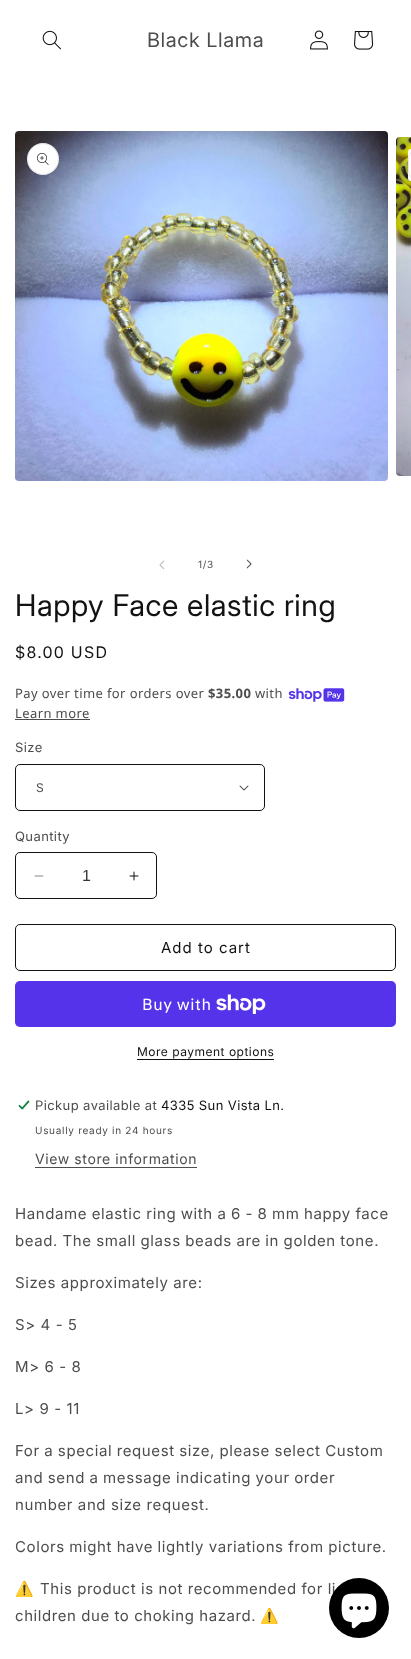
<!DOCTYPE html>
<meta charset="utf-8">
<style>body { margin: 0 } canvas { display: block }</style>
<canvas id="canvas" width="411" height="1659"></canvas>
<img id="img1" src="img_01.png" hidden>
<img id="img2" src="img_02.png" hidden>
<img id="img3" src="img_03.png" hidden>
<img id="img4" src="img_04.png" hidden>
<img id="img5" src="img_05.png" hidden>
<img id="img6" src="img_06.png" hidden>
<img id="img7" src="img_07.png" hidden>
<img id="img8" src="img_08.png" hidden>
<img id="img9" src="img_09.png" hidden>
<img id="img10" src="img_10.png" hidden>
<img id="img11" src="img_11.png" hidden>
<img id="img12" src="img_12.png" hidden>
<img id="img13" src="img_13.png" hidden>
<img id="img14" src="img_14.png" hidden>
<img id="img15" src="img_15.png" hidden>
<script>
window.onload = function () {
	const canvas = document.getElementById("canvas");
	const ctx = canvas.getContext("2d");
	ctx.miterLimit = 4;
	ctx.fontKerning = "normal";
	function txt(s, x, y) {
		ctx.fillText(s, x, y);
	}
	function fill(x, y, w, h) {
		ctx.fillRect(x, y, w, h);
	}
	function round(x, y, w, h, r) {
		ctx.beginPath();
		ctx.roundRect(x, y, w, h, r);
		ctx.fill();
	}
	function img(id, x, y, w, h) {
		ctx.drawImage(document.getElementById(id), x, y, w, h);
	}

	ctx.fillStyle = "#FFFFFF";
	fill(0, 0, 411, 1659);
	img("img1", 42, 30, 19, 20);
	img("img2", 310, 30, 18, 20);
	img("img3", 354, 31, 20, 19);
	img("img4", 15, 131, 373, 350);
	ctx.beginPath();
	ctx.arc(43, 159, 16, 0, Math.PI * 2);
	ctx.fill();
	ctx.beginPath();
	ctx.arc(43, 159, 15.5, 0, Math.PI * 2);
	ctx.strokeStyle = "rgba(18, 18, 18, 0.1)";
	ctx.stroke();
	img("img5", 37, 153, 12, 12);
	img("img6", 396, 137, 15, 339);
	ctx.beginPath();
	ctx.roundRect(408, 149, 3, 32, [16, 0, 0, 16]);
	ctx.fill();
	ctx.beginPath();
	ctx.roundRect(408.5, 149.5, 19, 31, 15.5);
	ctx.stroke();
	img("img7", 159, 560, 6, 10);
	img("img8", 246, 559, 6, 10);
	img("img9", 288, 688, 57, 14);
	ctx.fillStyle = "#4D4D4D";
	fill(15, 719, 75, 1);
	img("img10", 239, 785, 10, 6);
	ctx.beginPath();
	ctx.roundRect(15.5, 764.5, 249, 46, 4.5);
	ctx.strokeStyle = "#121212";
	ctx.stroke();
	img("img11", 34, 875, 10, 2);
	img("img12", 129, 871, 10, 10);
	ctx.beginPath();
	ctx.roundRect(15.5, 852.5, 141, 46, 4.5);
	ctx.stroke();
	ctx.beginPath();
	ctx.roundRect(15.5, 924.5, 380, 46, 4.5);
	ctx.stroke();
	ctx.fillStyle = "#5433EB";
	round(15, 981, 381, 46, 5);
	img("img13", 216, 994, 50, 20);
	ctx.fillStyle = "#121212";
	fill(137, 1059, 137, 1);
	img("img14", 18, 1100, 12, 10);
	ctx.fillStyle = "#4D4D4D";
	fill(35, 1167, 162, 1);
	ctx.letterSpacing = "0.6px";
	ctx.font = "20px 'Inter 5'";
	txt("Black Llama", 147, 47);
	ctx.letterSpacing = "0.7px";
	ctx.font = "10px Inter";
	txt("1/3", 198, 568);
	ctx.letterSpacing = "0.6px";
	ctx.font = "30px 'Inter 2'";
	ctx.fillStyle = "#121212";
	txt("Happy Face elastic ring", 15, 616);
	ctx.letterSpacing = "1.25px";
	ctx.font = "16px 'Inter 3'";
	txt("$8.00 USD", 15, 658);
	ctx.letterSpacing = "0.4px";
	ctx.font = "13px Noto Sans";
	ctx.fillStyle = "#4D4D4D";
	txt("Pay over time for orders over", 15, 698);
	ctx.font = "bold 13px Noto Sans";
	txt("$35.00", 208, 698);
	ctx.font = "13px Noto Sans";
	txt("with", 255, 698);
	txt("Learn more", 15, 718);
	ctx.font = "13px Inter";
	txt("Size", 15, 752);
	ctx.font = "12px Inter";
	txt("S", 36, 792);
	ctx.font = "13px Inter";
	txt("Quantity", 15, 841);
	ctx.letterSpacing = "0px";
	ctx.font = "16px Liberation Sans";
	ctx.fillStyle = "#363636";
	txt("1", 82, 881);
	ctx.letterSpacing = "1px";
	ctx.font = "15px Inter";
	ctx.fillStyle = "#121212";
	txt("Add to cart", 161, 953);
	ctx.letterSpacing = "0.6px";
	ctx.font = "16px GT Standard";
	ctx.fillStyle = "#FFFFFF";
	txt("Buy with", 142, 1010);
	ctx.letterSpacing = "0.5px";
	ctx.font = "12px Inter";
	ctx.fillStyle = "#121212";
	txt("More payment options", 137, 1056);
	ctx.letterSpacing = "0.4px";
	ctx.font = "13px Inter";
	ctx.fillStyle = "#4D4D4D";
	txt("Pickup available at", 35, 1110);
	ctx.fillStyle = "#121212";
	txt("4335 Sun Vista Ln.", 161, 1110);
	ctx.letterSpacing = "0.7px";
	ctx.font = "10px Inter";
	ctx.fillStyle = "#4D4D4D";
	txt("Usually ready in 24 hours", 35, 1134);
	ctx.letterSpacing = "0.6px";
	ctx.font = "14px Inter";
	txt("View store information", 35, 1164);
	ctx.wordSpacing = "-0.25px";
	ctx.font = "15px Inter";
	txt("Handame elastic ring with a 6 - 8 mm happy face", 15, 1219);
	txt("bead. The small glass beads are in golden tone.", 15, 1246);
	ctx.wordSpacing = "0px";
	txt("Sizes approximately are:", 15, 1288);
	txt("S> 4 - 5", 15, 1330);
	txt("M> 6 - 8", 15, 1372);
	txt("L> 9 - 11", 15, 1414);
	ctx.wordSpacing = "-0.25px";
	txt("For a special request size, please select Custom", 15, 1456);
	txt("and send a message indicating your order", 15, 1483);
	ctx.wordSpacing = "0px";
	txt("number and size request.", 15, 1510);
	ctx.wordSpacing = "-0.25px";
	txt("Colors might have lightly variations from picture.", 15, 1552);
	ctx.wordSpacing = "0px";
	ctx.font = "15px Noto Color Emoji";
	txt("⚠️", 15, 1594);
	ctx.font = "15px 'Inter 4'";
	txt("This product is not recommended for li", 40, 1594);
	txt("children due to choking hazard.", 15, 1621);
	ctx.font = "15px Noto Color Emoji";
	txt("⚠️", 260, 1621);
	ctx.fillStyle = "#000000";
	ctx.beginPath();
	ctx.arc(359, 1608, 30, 0, Math.PI * 2);
	ctx.fill();
	img("img15", 341, 1593, 36, 36);
};
</script>
